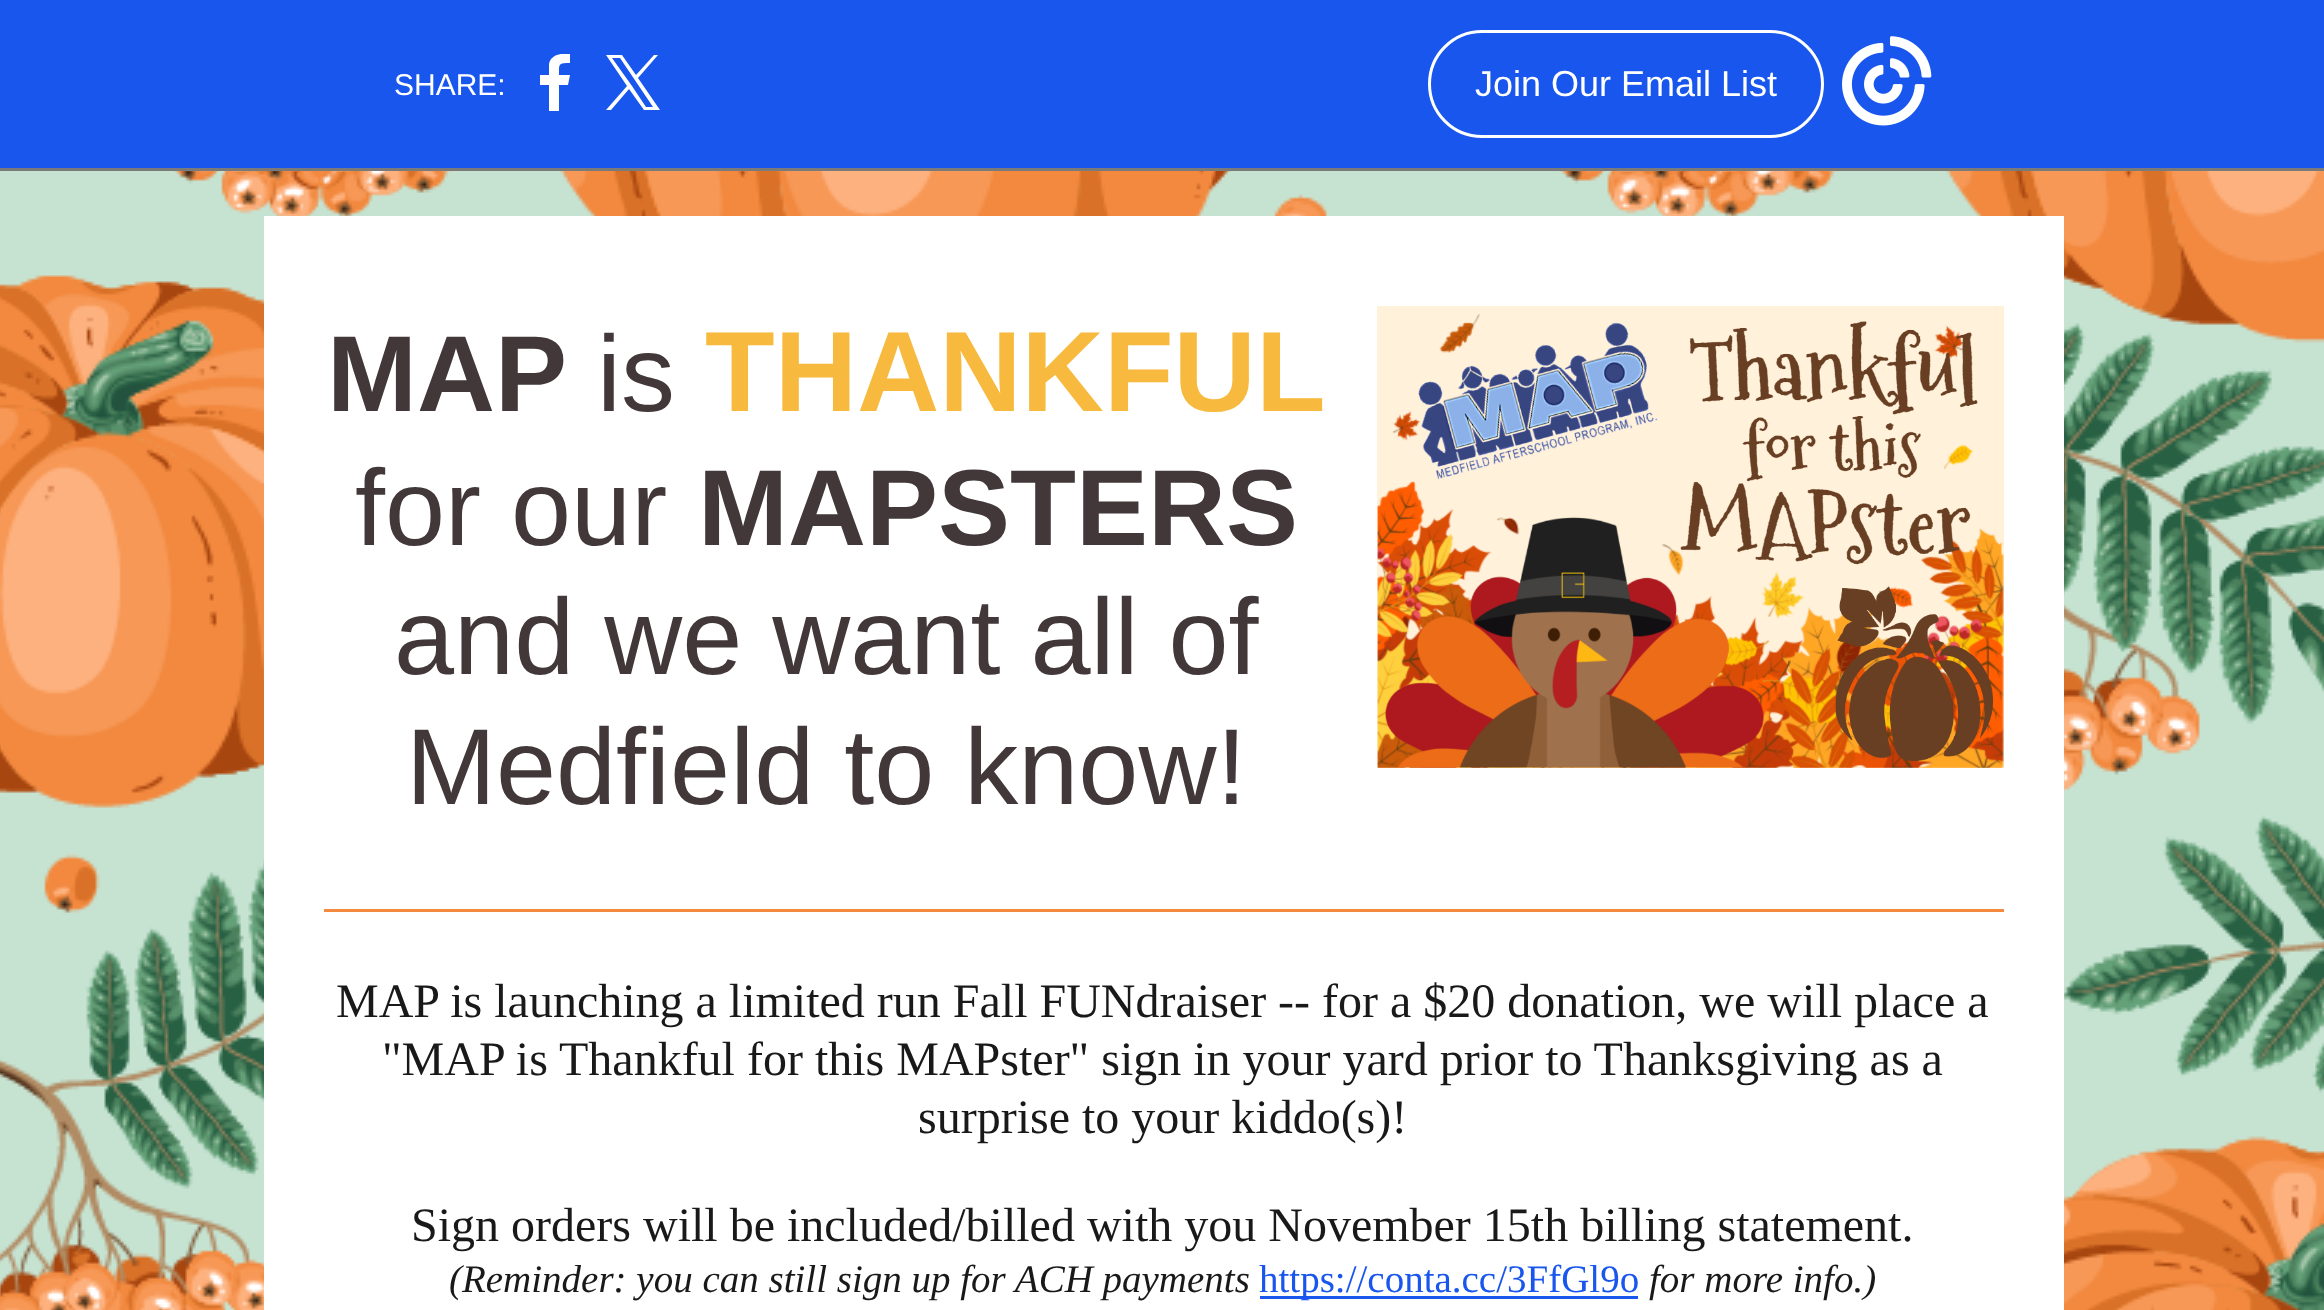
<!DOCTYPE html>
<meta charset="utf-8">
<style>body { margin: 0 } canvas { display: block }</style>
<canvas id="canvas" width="2324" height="1310"></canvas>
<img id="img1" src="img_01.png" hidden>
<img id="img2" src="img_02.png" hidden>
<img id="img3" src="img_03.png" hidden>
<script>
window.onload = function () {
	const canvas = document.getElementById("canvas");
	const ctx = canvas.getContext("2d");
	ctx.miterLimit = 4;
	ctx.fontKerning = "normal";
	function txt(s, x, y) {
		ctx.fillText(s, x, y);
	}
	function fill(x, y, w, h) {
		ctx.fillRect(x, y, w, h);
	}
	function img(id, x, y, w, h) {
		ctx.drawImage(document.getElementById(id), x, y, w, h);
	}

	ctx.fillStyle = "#1856ED";
	fill(0, 0, 2324, 1310);
	ctx.fillStyle = "#7A7A7A";
	fill(0, 168, 2324, 3);
	ctx.save();
	ctx.beginPath();
	ctx.rect(540, 54, 30, 57);
	ctx.clip();
	ctx.fillStyle = "#FFFFFF";
	ctx.beginPath();
	ctx.moveTo(559, 111);
	ctx.lineTo(559, 85);
	ctx.lineTo(568, 85);
	ctx.lineTo(570, 75);
	ctx.lineTo(559, 75);
	ctx.bezierCurveTo(559, 64, 558, 63, 570, 63);
	ctx.lineTo(570, 54);
	ctx.bezierCurveTo(562, 53, 551, 54, 549, 64);
	ctx.lineTo(549, 75);
	ctx.lineTo(540, 75);
	ctx.lineTo(540, 85);
	ctx.lineTo(549, 85);
	ctx.lineTo(549, 111);
	ctx.closePath();
	ctx.fill("evenodd");
	ctx.restore();
	ctx.fillStyle = "#FFFFFF";
	ctx.beginPath();
	ctx.moveTo(638, 78);
	ctx.lineTo(658, 55);
	ctx.lineTo(654, 55);
	ctx.lineTo(636, 75);
	ctx.lineTo(622, 55);
	ctx.lineTo(606, 55);
	ctx.lineTo(627, 86);
	ctx.lineTo(606, 110);
	ctx.lineTo(611, 110);
	ctx.lineTo(629, 89);
	ctx.lineTo(644, 110);
	ctx.lineTo(660, 110);
	ctx.closePath();
	ctx.moveTo(632, 86);
	ctx.lineTo(612, 58);
	ctx.lineTo(620, 58);
	ctx.lineTo(653, 107);
	ctx.lineTo(646, 107);
	ctx.closePath();
	ctx.fill();
	ctx.beginPath();
	ctx.roundRect(1429.5, 31.5, 393, 105, 52.5);
	ctx.strokeStyle = "#FFFFFF";
	ctx.lineWidth = 3;
	ctx.stroke();
	img("img1", 1842, 36, 90, 90);
	ctx.fillStyle = "#C6E3D2";
	fill(0, 171, 2324, 1139);
	img("img2", 0, 171, 2324, 1139);
	ctx.fillStyle = "#FFFFFF";
	fill(264, 216, 1800, 1094);
	img("img3", 1377, 306, 627, 462);
	ctx.fillStyle = "#F48A3F";
	fill(324, 909, 1680, 3);
	ctx.fillStyle = "#1856ED";
	fill(1260, 1296, 378, 3);
	ctx.font = "30px Liberation Sans";
	ctx.fillStyle = "#FFFFFF";
	txt("SHARE:", 394, 95);
	ctx.font = "36px Liberation Sans";
	txt("Join Our Email List", 1475, 96);
	ctx.font = "bold 108px Liberation Sans";
	ctx.fillStyle = "#423839";
	txt("MAP", 327, 411);
	ctx.font = "108px Liberation Sans";
	txt("is", 597, 411);
	ctx.font = "bold 114px Liberation Sans";
	ctx.fillStyle = "#F7BA3E";
	txt("THANKFUL", 705, 411);
	ctx.font = "108px Liberation Sans";
	ctx.fillStyle = "#423839";
	txt("for our", 355, 545);
	ctx.font = "bold 108px Liberation Sans";
	txt("MAPSTERS", 698, 545);
	ctx.font = "108px Liberation Sans";
	txt("and we want all of", 394, 674);
	txt("Medfield to know!", 406, 804);
	ctx.font = "48px Liberation Serif";
	ctx.fillStyle = "#191919";
	txt("MAP is launching a limited run Fall FUNdraiser -- for a $20 donation, we will place a", 336, 1017);
	txt("\"MAP is Thankful for this MAPster\" sign in your yard prior to Thanksgiving as a", 382, 1075);
	txt("surprise to your kiddo(s)!", 918, 1133);
	txt("Sign orders will be included/billed with you November 15th billing statement.", 411, 1241);
	ctx.font = "italic 39px Liberation Serif";
	txt("(Reminder: you can still sign up for ACH payments", 449, 1292);
	ctx.font = "39px Liberation Serif";
	ctx.fillStyle = "#1856ED";
	txt("https://conta.cc/3FfGl9o", 1259, 1292);
	ctx.font = "italic 39px Liberation Serif";
	ctx.fillStyle = "#191919";
	txt("for more info.)", 1649, 1292);
};
</script>
